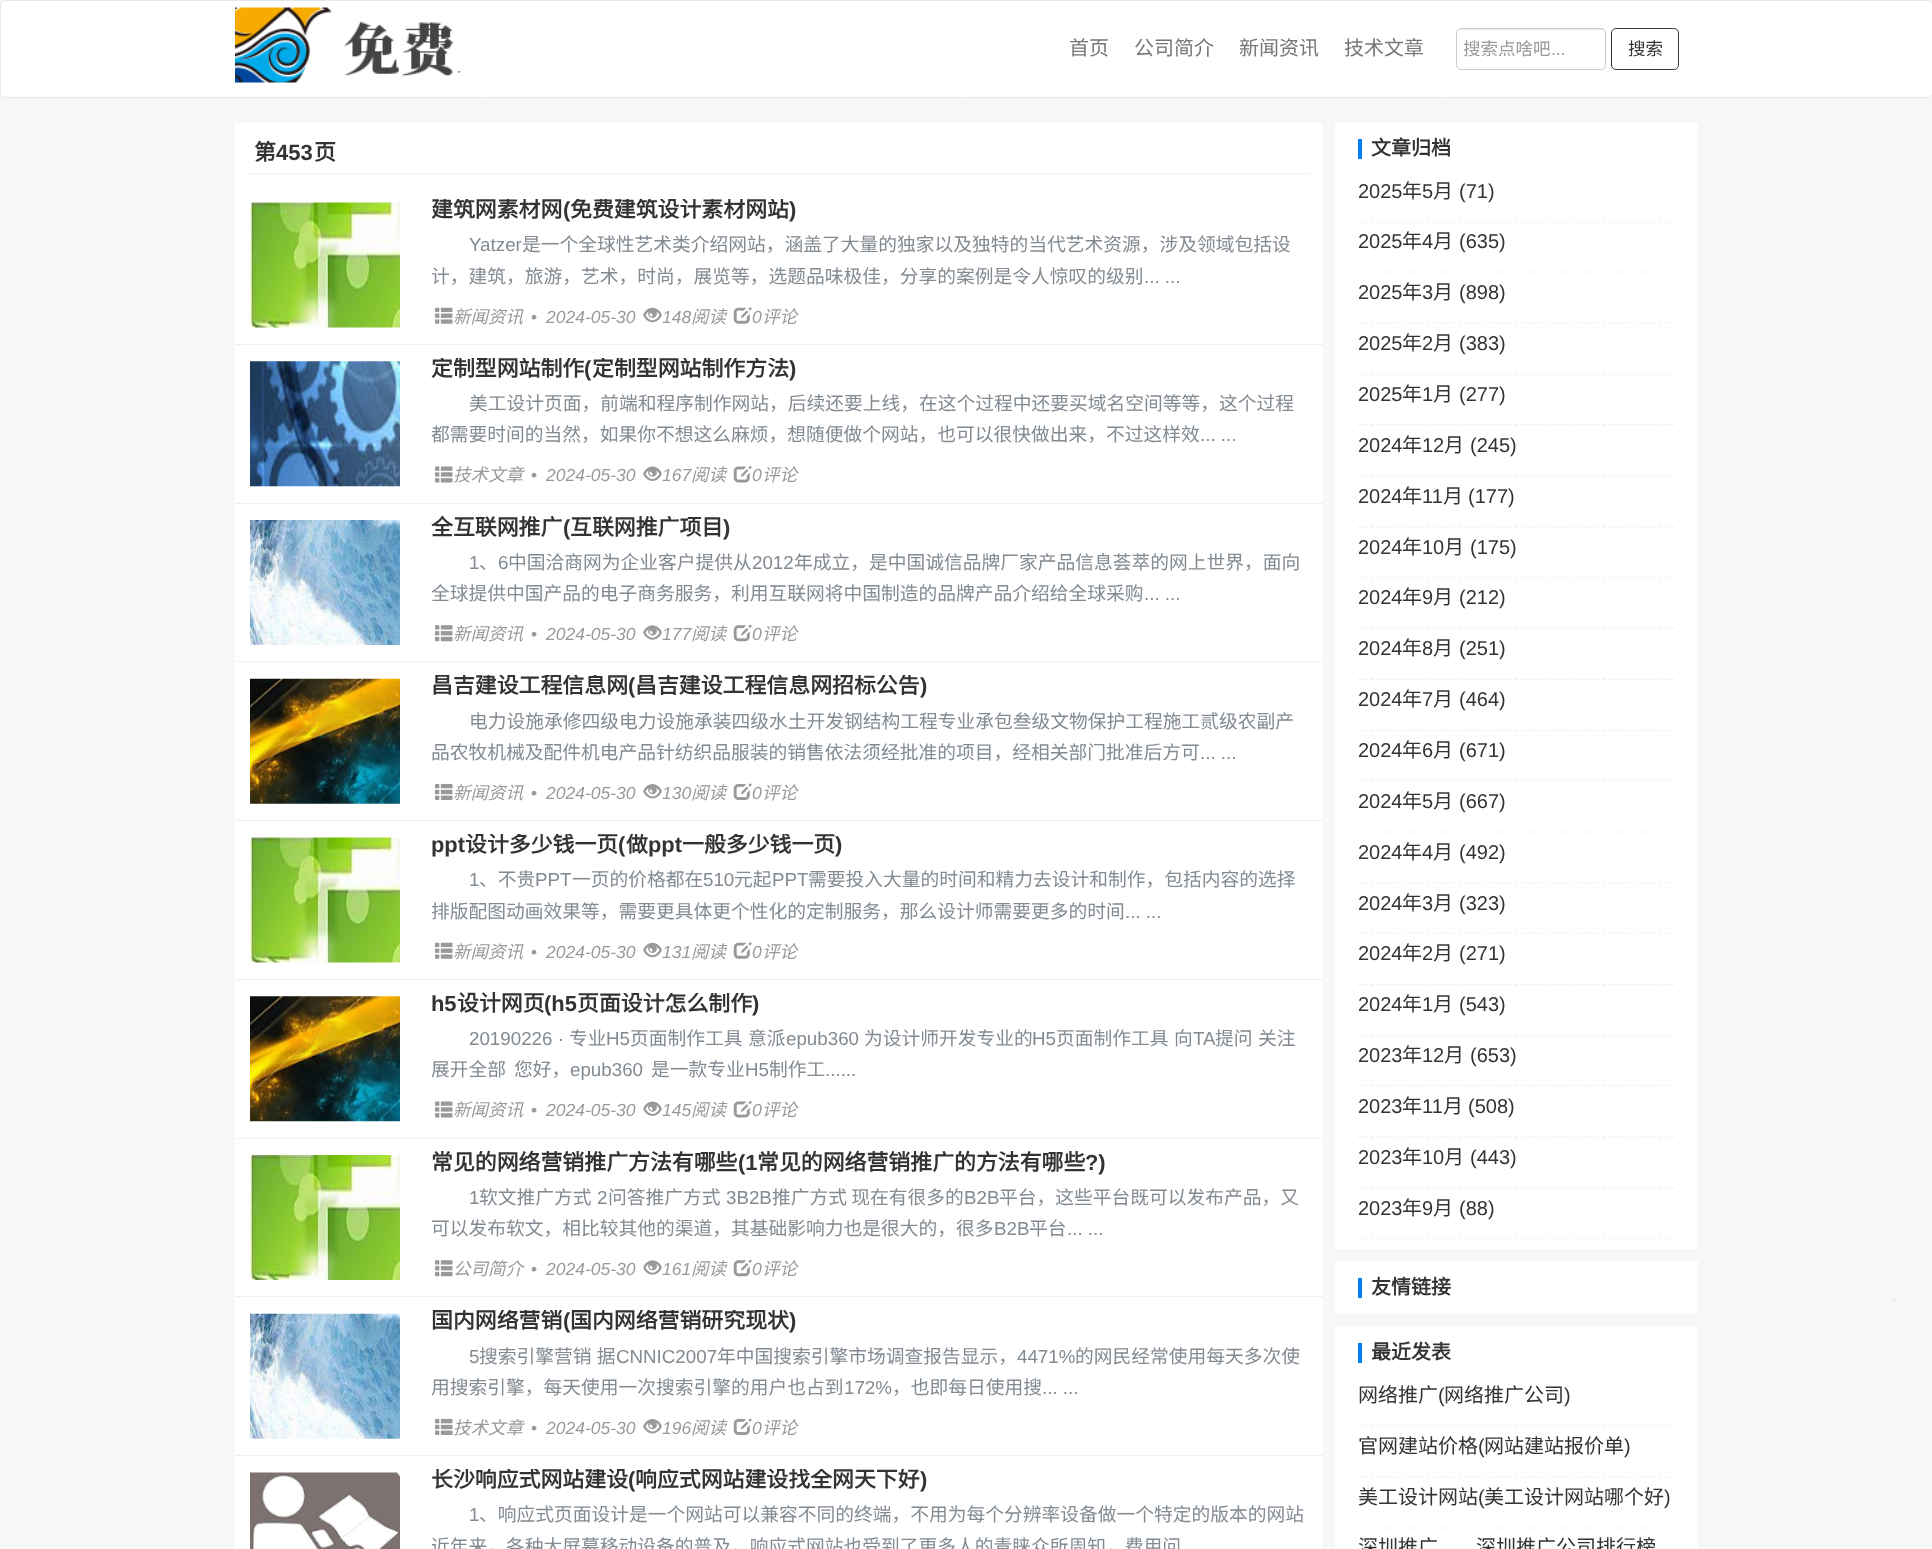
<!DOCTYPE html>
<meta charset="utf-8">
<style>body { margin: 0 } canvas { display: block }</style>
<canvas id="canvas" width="1932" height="1549"></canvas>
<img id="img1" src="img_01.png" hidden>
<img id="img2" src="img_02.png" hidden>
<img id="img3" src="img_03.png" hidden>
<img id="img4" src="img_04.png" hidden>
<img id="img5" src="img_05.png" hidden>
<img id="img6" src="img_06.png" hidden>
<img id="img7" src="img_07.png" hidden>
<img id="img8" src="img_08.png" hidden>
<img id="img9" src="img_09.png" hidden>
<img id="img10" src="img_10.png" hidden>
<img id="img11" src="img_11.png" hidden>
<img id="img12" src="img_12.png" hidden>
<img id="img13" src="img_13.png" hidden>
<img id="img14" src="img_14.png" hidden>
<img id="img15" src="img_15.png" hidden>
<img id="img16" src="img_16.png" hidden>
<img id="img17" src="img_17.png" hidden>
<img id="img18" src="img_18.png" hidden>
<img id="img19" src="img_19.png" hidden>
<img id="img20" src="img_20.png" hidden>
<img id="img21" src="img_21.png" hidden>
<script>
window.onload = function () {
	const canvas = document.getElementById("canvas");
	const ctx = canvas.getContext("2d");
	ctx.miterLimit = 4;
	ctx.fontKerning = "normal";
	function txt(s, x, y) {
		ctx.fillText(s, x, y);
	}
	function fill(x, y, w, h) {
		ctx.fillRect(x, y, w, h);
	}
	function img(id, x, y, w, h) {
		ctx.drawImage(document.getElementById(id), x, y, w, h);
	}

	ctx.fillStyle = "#F7F7F7";
	fill(0, 0, 1932, 1549);
	ctx.fillStyle = "#FFFFFF";
	ctx.beginPath();
	ctx.roundRect(0.5, 0.5, 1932, 97, 4.5);
	ctx.fill();
	ctx.strokeStyle = "#E7E7E7";
	ctx.stroke();
	img("img1", 235, 7, 225, 76);
	ctx.fillStyle = "#ECECEC";
	ctx.beginPath();
	ctx.moveTo(1461, 30);
	ctx.lineTo(1601, 30);
	ctx.bezierCurveTo(1603, 30, 1605, 32, 1605, 34);
	ctx.lineTo(1605, 33);
	ctx.bezierCurveTo(1605, 31, 1603, 29, 1601, 29);
	ctx.lineTo(1462, 29);
	ctx.bezierCurveTo(1460, 29, 1458, 31, 1458, 33);
	ctx.lineTo(1458, 34);
	ctx.bezierCurveTo(1458, 32, 1459, 30, 1461, 30);
	ctx.closePath();
	ctx.fill();
	ctx.beginPath();
	ctx.roundRect(1456.5, 28.5, 149, 41, 4.5);
	ctx.strokeStyle = "#CCCCCC";
	ctx.stroke();
	ctx.beginPath();
	ctx.roundRect(1611.5, 28.5, 67, 41, 4.5);
	ctx.strokeStyle = "#343A40";
	ctx.stroke();
	ctx.fillStyle = "#FFFFFF";
	fill(235, 123, 1088, 221);
	ctx.fillStyle = "#F0F0F0";
	fill(248, 173, 1062, 1);
	ctx.fillStyle = "#FFFFFF";
	fill(1335, 123, 363, 1126);
	ctx.fillStyle = "#037EF3";
	fill(1358, 139, 4, 20);
	ctx.beginPath();
	ctx.moveTo(1357.5, 222);
	ctx.lineTo(1675, 222);
	ctx.strokeStyle = "#F0F0F0";
	ctx.lineWidth = 1.2;
	ctx.setLineDash([3.75, 2.52]);
	ctx.stroke();
	ctx.beginPath();
	ctx.moveTo(1357.5, 272);
	ctx.lineTo(1675, 272);
	ctx.stroke();
	ctx.beginPath();
	ctx.moveTo(1357.5, 323);
	ctx.lineTo(1675, 323);
	ctx.stroke();
	ctx.beginPath();
	ctx.moveTo(1357.5, 374.5);
	ctx.lineTo(1675, 374.5);
	ctx.stroke();
	ctx.beginPath();
	ctx.moveTo(1357.5, 424.5);
	ctx.lineTo(1675, 424.5);
	ctx.stroke();
	ctx.beginPath();
	ctx.moveTo(1357.5, 475.5);
	ctx.lineTo(1675, 475.5);
	ctx.stroke();
	ctx.beginPath();
	ctx.moveTo(1357.5, 527);
	ctx.lineTo(1675, 527);
	ctx.stroke();
	ctx.beginPath();
	ctx.moveTo(1357.5, 578);
	ctx.lineTo(1675, 578);
	ctx.stroke();
	ctx.beginPath();
	ctx.moveTo(1357.5, 628);
	ctx.lineTo(1675, 628);
	ctx.stroke();
	ctx.beginPath();
	ctx.moveTo(1357.5, 679.5);
	ctx.lineTo(1675, 679.5);
	ctx.stroke();
	ctx.beginPath();
	ctx.moveTo(1357.5, 730.5);
	ctx.lineTo(1675, 730.5);
	ctx.stroke();
	ctx.beginPath();
	ctx.moveTo(1357.5, 780.5);
	ctx.lineTo(1675, 780.5);
	ctx.stroke();
	ctx.beginPath();
	ctx.moveTo(1357.5, 832);
	ctx.lineTo(1675, 832);
	ctx.stroke();
	ctx.beginPath();
	ctx.moveTo(1357.5, 883);
	ctx.lineTo(1675, 883);
	ctx.stroke();
	ctx.beginPath();
	ctx.moveTo(1357.5, 933);
	ctx.lineTo(1675, 933);
	ctx.stroke();
	ctx.beginPath();
	ctx.moveTo(1357.5, 984.5);
	ctx.lineTo(1675, 984.5);
	ctx.stroke();
	ctx.beginPath();
	ctx.moveTo(1357.5, 1035.5);
	ctx.lineTo(1675, 1035.5);
	ctx.stroke();
	ctx.beginPath();
	ctx.moveTo(1357.5, 1085.5);
	ctx.lineTo(1675, 1085.5);
	ctx.stroke();
	ctx.beginPath();
	ctx.moveTo(1357.5, 1137);
	ctx.lineTo(1675, 1137);
	ctx.stroke();
	ctx.beginPath();
	ctx.moveTo(1357.5, 1188);
	ctx.lineTo(1675, 1188);
	ctx.stroke();
	ctx.beginPath();
	ctx.moveTo(1357.5, 1238);
	ctx.lineTo(1675, 1238);
	ctx.stroke();
	ctx.fillStyle = "#FFFFFF";
	fill(1335, 1261, 363, 53);
	ctx.fillStyle = "#037EF3";
	fill(1358, 1278, 4, 20);
	ctx.fillStyle = "#FFFFFF";
	fill(1335, 1326, 363, 223);
	ctx.fillStyle = "#037EF3";
	fill(1358, 1343, 4, 20);
	ctx.beginPath();
	ctx.moveTo(1357.5, 1425.5);
	ctx.lineTo(1675, 1425.5);
	ctx.stroke();
	ctx.beginPath();
	ctx.moveTo(1357.5, 1477);
	ctx.lineTo(1675, 1477);
	ctx.stroke();
	ctx.beginPath();
	ctx.moveTo(1357.5, 1528);
	ctx.lineTo(1675, 1528);
	ctx.stroke();
	ctx.fillStyle = "#F0F0F0";
	fill(235, 344, 1088, 1);
	img("img2", 250, 202, 150, 126);
	img("img3", 435, 307, 18, 17);
	img("img4", 643, 307, 19, 16);
	img("img5", 733, 307, 19, 17);
	ctx.fillStyle = "#FFFFFF";
	fill(235, 345, 1088, 158);
	ctx.fillStyle = "#F0F0F0";
	fill(235, 503, 1088, 1);
	img("img6", 250, 361, 150, 126);
	img("img7", 435, 466, 18, 17);
	img("img8", 643, 466, 19, 15);
	img("img9", 733, 466, 19, 17);
	ctx.fillStyle = "#FFFFFF";
	fill(235, 504, 1088, 316);
	ctx.fillStyle = "#F0F0F0";
	fill(235, 661, 1088, 1);
	img("img10", 250, 520, 150, 125);
	img("img11", 435, 625, 18, 17);
	img("img12", 643, 625, 19, 15);
	img("img13", 733, 624, 19, 18);
	fill(235, 820, 1088, 1);
	img("img14", 250, 678, 150, 126);
	img("img15", 435, 783, 18, 17);
	img("img16", 643, 784, 19, 15);
	img("img17", 733, 783, 19, 17);
	ctx.fillStyle = "#FFFFFF";
	fill(235, 821, 1088, 158);
	ctx.fillStyle = "#F0F0F0";
	fill(235, 979, 1088, 1);
	img("img2", 250, 837, 150, 126);
	img("img3", 435, 942, 18, 17);
	img("img4", 643, 942, 19, 16);
	img("img5", 733, 942, 19, 17);
	ctx.fillStyle = "#FFFFFF";
	fill(235, 980, 1088, 158);
	ctx.fillStyle = "#F0F0F0";
	fill(235, 1138, 1088, 1);
	img("img18", 250, 996, 150, 126);
	img("img7", 435, 1101, 18, 17);
	img("img8", 643, 1101, 19, 15);
	img("img9", 733, 1101, 19, 17);
	ctx.fillStyle = "#FFFFFF";
	fill(235, 1139, 1088, 316);
	ctx.fillStyle = "#F0F0F0";
	fill(235, 1296, 1088, 1);
	img("img19", 250, 1155, 150, 125);
	img("img11", 435, 1260, 18, 17);
	img("img12", 643, 1260, 19, 15);
	img("img13", 733, 1259, 19, 18);
	fill(235, 1455, 1088, 1);
	img("img20", 250, 1313, 150, 126);
	img("img15", 435, 1418, 18, 17);
	img("img16", 643, 1419, 19, 15);
	img("img17", 733, 1418, 19, 17);
	ctx.fillStyle = "#FFFFFF";
	fill(235, 1456, 1088, 93);
	img("img21", 250, 1472, 150, 77);
	ctx.fillStyle = "#EAEAEA";
	fill(1893, 1298, 3, 3);
	ctx.font = "20px Noto Sans CJK SC";
	ctx.fillStyle = "#777777";
	txt("首页", 1069, 55);
	txt("公司简介", 1134, 55);
	txt("新闻资讯", 1239, 55);
	txt("技术文章", 1344, 55);
	ctx.font = "17.5px Noto Sans CJK SC";
	ctx.fillStyle = "#999999";
	txt("搜索点啥吧", 1463, 55);
	ctx.font = "17.5px Liberation Sans";
	txt("...", 1551, 55);
	ctx.font = "17.5px Noto Sans CJK SC";
	ctx.fillStyle = "#333333";
	txt("搜索", 1628, 55);
	ctx.font = "bold 22px Noto Sans CJK SC";
	txt("第", 254, 160);
	ctx.font = "bold 22px Liberation Sans";
	txt("453", 276, 160);
	ctx.font = "bold 22px Noto Sans CJK SC";
	txt("页", 314, 160);
	ctx.font = "bold 20px Noto Sans CJK SC";
	txt("文章归档", 1371, 155);
	ctx.font = "20px Liberation Sans";
	txt("2025", 1358, 198);
	ctx.font = "20px Noto Sans CJK SC";
	txt("年", 1402, 198);
	ctx.font = "20px Liberation Sans";
	txt("5", 1422, 198);
	ctx.font = "20px Noto Sans CJK SC";
	txt("月", 1433, 198);
	ctx.font = "20px Liberation Sans";
	txt("(71)", 1459, 198);
	txt("2025", 1358, 248);
	ctx.font = "20px Noto Sans CJK SC";
	txt("年", 1402, 248);
	ctx.font = "20px Liberation Sans";
	txt("4", 1422, 248);
	ctx.font = "20px Noto Sans CJK SC";
	txt("月", 1433, 248);
	ctx.font = "20px Liberation Sans";
	txt("(635)", 1459, 248);
	txt("2025", 1358, 299);
	ctx.font = "20px Noto Sans CJK SC";
	txt("年", 1402, 299);
	ctx.font = "20px Liberation Sans";
	txt("3", 1422, 299);
	ctx.font = "20px Noto Sans CJK SC";
	txt("月", 1433, 299);
	ctx.font = "20px Liberation Sans";
	txt("(898)", 1459, 299);
	txt("2025", 1358, 350);
	ctx.font = "20px Noto Sans CJK SC";
	txt("年", 1402, 350);
	ctx.font = "20px Liberation Sans";
	txt("2", 1422, 350);
	ctx.font = "20px Noto Sans CJK SC";
	txt("月", 1433, 350);
	ctx.font = "20px Liberation Sans";
	txt("(383)", 1459, 350);
	txt("2025", 1358, 401);
	ctx.font = "20px Noto Sans CJK SC";
	txt("年", 1402, 401);
	ctx.font = "20px Liberation Sans";
	txt("1", 1422, 401);
	ctx.font = "20px Noto Sans CJK SC";
	txt("月", 1433, 401);
	ctx.font = "20px Liberation Sans";
	txt("(277)", 1459, 401);
	txt("2024", 1358, 452);
	ctx.font = "20px Noto Sans CJK SC";
	txt("年", 1402, 452);
	ctx.font = "20px Liberation Sans";
	txt("12", 1422, 452);
	ctx.font = "20px Noto Sans CJK SC";
	txt("月", 1444, 452);
	ctx.font = "20px Liberation Sans";
	txt("(245)", 1470, 452);
	txt("2024", 1358, 503);
	ctx.font = "20px Noto Sans CJK SC";
	txt("年", 1402, 503);
	ctx.font = "20px Liberation Sans";
	txt("11", 1422, 503);
	ctx.font = "20px Noto Sans CJK SC";
	txt("月", 1443, 503);
	ctx.font = "20px Liberation Sans";
	txt("(177)", 1468, 503);
	txt("2024", 1358, 554);
	ctx.font = "20px Noto Sans CJK SC";
	txt("年", 1402, 554);
	ctx.font = "20px Liberation Sans";
	txt("10", 1422, 554);
	ctx.font = "20px Noto Sans CJK SC";
	txt("月", 1444, 554);
	ctx.font = "20px Liberation Sans";
	txt("(175)", 1470, 554);
	txt("2024", 1358, 604);
	ctx.font = "20px Noto Sans CJK SC";
	txt("年", 1402, 604);
	ctx.font = "20px Liberation Sans";
	txt("9", 1422, 604);
	ctx.font = "20px Noto Sans CJK SC";
	txt("月", 1433, 604);
	ctx.font = "20px Liberation Sans";
	txt("(212)", 1459, 604);
	txt("2024", 1358, 655);
	ctx.font = "20px Noto Sans CJK SC";
	txt("年", 1402, 655);
	ctx.font = "20px Liberation Sans";
	txt("8", 1422, 655);
	ctx.font = "20px Noto Sans CJK SC";
	txt("月", 1433, 655);
	ctx.font = "20px Liberation Sans";
	txt("(251)", 1459, 655);
	txt("2024", 1358, 706);
	ctx.font = "20px Noto Sans CJK SC";
	txt("年", 1402, 706);
	ctx.font = "20px Liberation Sans";
	txt("7", 1422, 706);
	ctx.font = "20px Noto Sans CJK SC";
	txt("月", 1433, 706);
	ctx.font = "20px Liberation Sans";
	txt("(464)", 1459, 706);
	txt("2024", 1358, 757);
	ctx.font = "20px Noto Sans CJK SC";
	txt("年", 1402, 757);
	ctx.font = "20px Liberation Sans";
	txt("6", 1422, 757);
	ctx.font = "20px Noto Sans CJK SC";
	txt("月", 1433, 757);
	ctx.font = "20px Liberation Sans";
	txt("(671)", 1459, 757);
	txt("2024", 1358, 808);
	ctx.font = "20px Noto Sans CJK SC";
	txt("年", 1402, 808);
	ctx.font = "20px Liberation Sans";
	txt("5", 1422, 808);
	ctx.font = "20px Noto Sans CJK SC";
	txt("月", 1433, 808);
	ctx.font = "20px Liberation Sans";
	txt("(667)", 1459, 808);
	txt("2024", 1358, 859);
	ctx.font = "20px Noto Sans CJK SC";
	txt("年", 1402, 859);
	ctx.font = "20px Liberation Sans";
	txt("4", 1422, 859);
	ctx.font = "20px Noto Sans CJK SC";
	txt("月", 1433, 859);
	ctx.font = "20px Liberation Sans";
	txt("(492)", 1459, 859);
	txt("2024", 1358, 910);
	ctx.font = "20px Noto Sans CJK SC";
	txt("年", 1402, 910);
	ctx.font = "20px Liberation Sans";
	txt("3", 1422, 910);
	ctx.font = "20px Noto Sans CJK SC";
	txt("月", 1433, 910);
	ctx.font = "20px Liberation Sans";
	txt("(323)", 1459, 910);
	txt("2024", 1358, 960);
	ctx.font = "20px Noto Sans CJK SC";
	txt("年", 1402, 960);
	ctx.font = "20px Liberation Sans";
	txt("2", 1422, 960);
	ctx.font = "20px Noto Sans CJK SC";
	txt("月", 1433, 960);
	ctx.font = "20px Liberation Sans";
	txt("(271)", 1459, 960);
	txt("2024", 1358, 1011);
	ctx.font = "20px Noto Sans CJK SC";
	txt("年", 1402, 1011);
	ctx.font = "20px Liberation Sans";
	txt("1", 1422, 1011);
	ctx.font = "20px Noto Sans CJK SC";
	txt("月", 1433, 1011);
	ctx.font = "20px Liberation Sans";
	txt("(543)", 1459, 1011);
	txt("2023", 1358, 1062);
	ctx.font = "20px Noto Sans CJK SC";
	txt("年", 1402, 1062);
	ctx.font = "20px Liberation Sans";
	txt("12", 1422, 1062);
	ctx.font = "20px Noto Sans CJK SC";
	txt("月", 1444, 1062);
	ctx.font = "20px Liberation Sans";
	txt("(653)", 1470, 1062);
	txt("2023", 1358, 1113);
	ctx.font = "20px Noto Sans CJK SC";
	txt("年", 1402, 1113);
	ctx.font = "20px Liberation Sans";
	txt("11", 1422, 1113);
	ctx.font = "20px Noto Sans CJK SC";
	txt("月", 1443, 1113);
	ctx.font = "20px Liberation Sans";
	txt("(508)", 1468, 1113);
	txt("2023", 1358, 1164);
	ctx.font = "20px Noto Sans CJK SC";
	txt("年", 1402, 1164);
	ctx.font = "20px Liberation Sans";
	txt("10", 1422, 1164);
	ctx.font = "20px Noto Sans CJK SC";
	txt("月", 1444, 1164);
	ctx.font = "20px Liberation Sans";
	txt("(443)", 1470, 1164);
	txt("2023", 1358, 1215);
	ctx.font = "20px Noto Sans CJK SC";
	txt("年", 1402, 1215);
	ctx.font = "20px Liberation Sans";
	txt("9", 1422, 1215);
	ctx.font = "20px Noto Sans CJK SC";
	txt("月", 1433, 1215);
	ctx.font = "20px Liberation Sans";
	txt("(88)", 1459, 1215);
	ctx.font = "bold 20px Noto Sans CJK SC";
	txt("友情链接", 1371, 1294);
	txt("最近发表", 1371, 1359);
	ctx.font = "20px Noto Sans CJK SC";
	txt("网络推广", 1358, 1402);
	ctx.font = "20px Liberation Sans";
	txt("(", 1438, 1402);
	ctx.font = "20px Noto Sans CJK SC";
	txt("网络推广公司", 1444, 1402);
	ctx.font = "20px Liberation Sans";
	txt(")", 1564, 1402);
	ctx.font = "20px Noto Sans CJK SC";
	txt("官网建站价格", 1358, 1453);
	ctx.font = "20px Liberation Sans";
	txt("(", 1478, 1453);
	ctx.font = "20px Noto Sans CJK SC";
	txt("网站建站报价单", 1484, 1453);
	ctx.font = "20px Liberation Sans";
	txt(")", 1624, 1453);
	ctx.font = "20px Noto Sans CJK SC";
	txt("美工设计网站", 1358, 1504);
	ctx.font = "20px Liberation Sans";
	txt("(", 1478, 1504);
	ctx.font = "20px Noto Sans CJK SC";
	txt("美工设计网站哪个好", 1484, 1504);
	ctx.font = "20px Liberation Sans";
	txt(")", 1664, 1504);
	ctx.font = "20px Noto Sans CJK SC";
	txt("深圳推广", 1358, 1554);
	txt("深圳推广公司排行榜", 1476, 1554);
	ctx.save();
	ctx.beginPath();
	ctx.rect(413, 199, 895, 132);
	ctx.clip();
	ctx.font = "bold 21.9px Noto Sans CJK SC";
	txt("建筑网素材网", 431, 217);
	ctx.restore();
	ctx.font = "bold 21.9px Liberation Sans";
	txt("(", 563, 217);
	ctx.save();
	ctx.beginPath();
	ctx.rect(413, 199, 895, 132);
	ctx.clip();
	ctx.font = "bold 21.9px Noto Sans CJK SC";
	txt("免费建筑设计素材网站", 570, 217);
	ctx.restore();
	txt(")", 789, 217);
	ctx.font = "18.75px Liberation Sans";
	ctx.fillStyle = "#828A92";
	txt("Yatzer", 469, 251);
	ctx.font = "18.75px Noto Sans CJK SC";
	txt("是一个全球性艺术类介绍网站，涵盖了大量的独家以及独特的当代艺术资源，涉及领域包括设", 522, 251);
	txt("计，建筑，旅游，艺术，时尚，展览等，选题品味极佳，分享的案例是令人惊叹的级别", 431, 283);
	ctx.font = "18.75px Liberation Sans";
	txt("... ...", 1144, 283);
	ctx.font = "italic 17.5px Noto Sans CJK SC";
	ctx.fillStyle = "#999999";
	txt("新闻资讯", 453, 323);
	ctx.font = "17.5px Liberation Sans";
	txt("•", 531, 323);
	ctx.font = "italic 17.5px Liberation Sans";
	txt("2024-05-30", 546, 323);
	txt("148", 662, 323);
	ctx.font = "italic 17.5px Noto Sans CJK SC";
	txt("阅读", 691, 323);
	ctx.font = "italic 17.5px Liberation Sans";
	txt("0", 752, 323);
	ctx.font = "italic 17.5px Noto Sans CJK SC";
	txt("评论", 762, 323);
	ctx.save();
	ctx.beginPath();
	ctx.rect(413, 358, 895, 132);
	ctx.clip();
	ctx.font = "bold 21.9px Noto Sans CJK SC";
	ctx.fillStyle = "#333333";
	txt("定制型网站制作", 431, 376);
	ctx.restore();
	ctx.font = "bold 21.9px Liberation Sans";
	ctx.fillStyle = "#333333";
	txt("(", 584, 376);
	ctx.save();
	ctx.beginPath();
	ctx.rect(413, 358, 895, 132);
	ctx.clip();
	ctx.font = "bold 21.9px Noto Sans CJK SC";
	txt("定制型网站制作方法", 592, 376);
	ctx.restore();
	txt(")", 789, 376);
	ctx.font = "18.75px Noto Sans CJK SC";
	ctx.fillStyle = "#828A92";
	txt("美工设计页面，前端和程序制作网站，后续还要上线，在这个过程中还要买域名空间等等，这个过程", 469, 410);
	txt("都需要时间的当然，如果你不想这么麻烦，想随便做个网站，也可以很快做出来，不过这样效", 431, 441);
	ctx.font = "18.75px Liberation Sans";
	txt("... ...", 1200, 441);
	ctx.font = "italic 17.5px Noto Sans CJK SC";
	ctx.fillStyle = "#999999";
	txt("技术文章", 453, 481);
	ctx.font = "17.5px Liberation Sans";
	txt("•", 531, 481);
	ctx.font = "italic 17.5px Liberation Sans";
	txt("2024-05-30", 546, 481);
	txt("167", 662, 481);
	ctx.font = "italic 17.5px Noto Sans CJK SC";
	txt("阅读", 691, 481);
	ctx.font = "italic 17.5px Liberation Sans";
	txt("0", 752, 481);
	ctx.font = "italic 17.5px Noto Sans CJK SC";
	txt("评论", 762, 481);
	ctx.font = "bold 21.9px Noto Sans CJK SC";
	ctx.fillStyle = "#333333";
	txt("全互联网推广", 431, 535);
	ctx.font = "bold 21.9px Liberation Sans";
	txt("(", 563, 535);
	ctx.font = "bold 21.9px Noto Sans CJK SC";
	txt("互联网推广项目", 570, 535);
	ctx.font = "bold 21.9px Liberation Sans";
	txt(")", 723, 535);
	ctx.font = "18.75px Liberation Sans";
	ctx.fillStyle = "#828A92";
	txt("1", 469, 569);
	ctx.font = "18.75px Noto Sans CJK SC";
	txt("、", 479, 569);
	ctx.font = "18.75px Liberation Sans";
	txt("6", 498, 569);
	ctx.font = "18.75px Noto Sans CJK SC";
	txt("中国洽商网为企业客户提供从", 508, 569);
	ctx.font = "18.75px Liberation Sans";
	txt("2012", 752, 569);
	ctx.font = "18.75px Noto Sans CJK SC";
	txt("年成立，是中国诚信品牌厂家产品信息荟萃的网上世界，面向", 794, 569);
	txt("全球提供中国产品的电子商务服务，利用互联网将中国制造的品牌产品介绍给全球采购", 431, 600);
	ctx.font = "18.75px Liberation Sans";
	txt("... ...", 1144, 600);
	ctx.font = "italic 17.5px Noto Sans CJK SC";
	ctx.fillStyle = "#999999";
	txt("新闻资讯", 453, 640);
	ctx.font = "17.5px Liberation Sans";
	txt("•", 531, 640);
	ctx.font = "italic 17.5px Liberation Sans";
	txt("2024-05-30", 546, 640);
	txt("177", 662, 640);
	ctx.font = "italic 17.5px Noto Sans CJK SC";
	txt("阅读", 691, 640);
	ctx.font = "italic 17.5px Liberation Sans";
	txt("0", 752, 640);
	ctx.font = "italic 17.5px Noto Sans CJK SC";
	txt("评论", 762, 640);
	ctx.save();
	ctx.beginPath();
	ctx.rect(413, 675, 895, 133);
	ctx.clip();
	ctx.font = "bold 21.9px Noto Sans CJK SC";
	ctx.fillStyle = "#333333";
	txt("昌吉建设工程信息网", 431, 693);
	ctx.restore();
	ctx.font = "bold 21.9px Liberation Sans";
	ctx.fillStyle = "#333333";
	txt("(", 628, 693);
	ctx.save();
	ctx.beginPath();
	ctx.rect(413, 675, 895, 133);
	ctx.clip();
	ctx.font = "bold 21.9px Noto Sans CJK SC";
	txt("昌吉建设工程信息网招标公告", 635, 693);
	ctx.restore();
	txt(")", 920, 693);
	ctx.font = "18.75px Noto Sans CJK SC";
	ctx.fillStyle = "#828A92";
	txt("电力设施承修四级电力设施承装四级水土开发钢结构工程专业承包叁级文物保护工程施工贰级农副产", 469, 728);
	txt("品农牧机械及配件机电产品针纺织品服装的销售依法须经批准的项目，经相关部门批准后方可", 431, 759);
	ctx.font = "18.75px Liberation Sans";
	txt("... ...", 1200, 759);
	ctx.font = "italic 17.5px Noto Sans CJK SC";
	ctx.fillStyle = "#999999";
	txt("新闻资讯", 453, 799);
	ctx.font = "17.5px Liberation Sans";
	txt("•", 531, 799);
	ctx.font = "italic 17.5px Liberation Sans";
	txt("2024-05-30", 546, 799);
	txt("130", 662, 799);
	ctx.font = "italic 17.5px Noto Sans CJK SC";
	txt("阅读", 691, 799);
	ctx.font = "italic 17.5px Liberation Sans";
	txt("0", 752, 799);
	ctx.font = "italic 17.5px Noto Sans CJK SC";
	txt("评论", 762, 799);
	ctx.font = "bold 21.9px Liberation Sans";
	ctx.fillStyle = "#333333";
	txt("ppt", 431, 852);
	ctx.save();
	ctx.beginPath();
	ctx.rect(413, 834, 895, 132);
	ctx.clip();
	ctx.font = "bold 21.9px Noto Sans CJK SC";
	txt("设计多少钱一页", 465, 852);
	ctx.restore();
	txt("(", 618, 852);
	ctx.save();
	ctx.beginPath();
	ctx.rect(413, 834, 895, 132);
	ctx.clip();
	ctx.font = "bold 21.9px Noto Sans CJK SC";
	txt("做", 626, 852);
	ctx.restore();
	txt("ppt", 648, 852);
	ctx.save();
	ctx.beginPath();
	ctx.rect(413, 834, 895, 132);
	ctx.clip();
	ctx.font = "bold 21.9px Noto Sans CJK SC";
	txt("一般多少钱一页", 682, 852);
	ctx.restore();
	txt(")", 835, 852);
	ctx.font = "18.75px Liberation Sans";
	ctx.fillStyle = "#828A92";
	txt("1", 469, 886);
	ctx.font = "18.75px Noto Sans CJK SC";
	txt("、不贵", 479, 886);
	ctx.font = "18.75px Liberation Sans";
	txt("PPT", 535, 886);
	ctx.font = "18.75px Noto Sans CJK SC";
	txt("一页的价格都在", 572, 886);
	ctx.font = "18.75px Liberation Sans";
	txt("510", 703, 886);
	ctx.font = "18.75px Noto Sans CJK SC";
	txt("元起", 734, 886);
	ctx.font = "18.75px Liberation Sans";
	txt("PPT", 772, 886);
	ctx.font = "18.75px Noto Sans CJK SC";
	txt("需要投入大量的时间和精力去设计和制作，包括内容的选择", 808, 886);
	txt("排版配图动画效果等，需要更具体更个性化的定制服务，那么设计师需要更多的时间", 431, 918);
	ctx.font = "18.75px Liberation Sans";
	txt("... ...", 1125, 918);
	ctx.font = "italic 17.5px Noto Sans CJK SC";
	ctx.fillStyle = "#999999";
	txt("新闻资讯", 453, 958);
	ctx.font = "17.5px Liberation Sans";
	txt("•", 531, 958);
	ctx.font = "italic 17.5px Liberation Sans";
	txt("2024-05-30", 546, 958);
	txt("131", 662, 958);
	ctx.font = "italic 17.5px Noto Sans CJK SC";
	txt("阅读", 691, 958);
	ctx.font = "italic 17.5px Liberation Sans";
	txt("0", 752, 958);
	ctx.font = "italic 17.5px Noto Sans CJK SC";
	txt("评论", 762, 958);
	ctx.font = "bold 21.9px Liberation Sans";
	ctx.fillStyle = "#333333";
	txt("h5", 431, 1011);
	ctx.font = "bold 21.9px Noto Sans CJK SC";
	txt("设计网页", 457, 1011);
	ctx.font = "bold 21.9px Liberation Sans";
	txt("(h5", 544, 1011);
	ctx.save();
	ctx.beginPath();
	ctx.rect(413, 993, 895, 132);
	ctx.clip();
	ctx.font = "bold 21.9px Noto Sans CJK SC";
	txt("页面设计怎么制作", 577, 1011);
	ctx.restore();
	txt(")", 752, 1011);
	ctx.font = "18.75px Liberation Sans";
	ctx.fillStyle = "#828A92";
	txt("20190226 ·", 469, 1045);
	ctx.font = "18.75px Noto Sans CJK SC";
	txt("专业", 569, 1045);
	ctx.font = "18.75px Liberation Sans";
	txt("H5", 606, 1045);
	ctx.font = "18.75px Noto Sans CJK SC";
	txt("页面制作工具", 630, 1045);
	txt("意派", 748, 1045);
	ctx.font = "18.75px Liberation Sans";
	txt("epub360", 786, 1045);
	ctx.font = "18.75px Noto Sans CJK SC";
	txt("为设计师开发专业的", 864, 1045);
	ctx.font = "18.75px Liberation Sans";
	txt("H5", 1032, 1045);
	ctx.font = "18.75px Noto Sans CJK SC";
	txt("页面制作工具", 1056, 1045);
	txt("向", 1174, 1045);
	ctx.font = "18.75px Liberation Sans";
	txt("TA", 1193, 1045);
	ctx.font = "18.75px Noto Sans CJK SC";
	txt("提问", 1215, 1045);
	txt("关注", 1258, 1045);
	txt("展开全部", 431, 1076);
	txt("您好，", 514, 1076);
	ctx.font = "18.75px Liberation Sans";
	txt("epub360", 570, 1076);
	ctx.font = "18.75px Noto Sans CJK SC";
	txt("是一款专业", 651, 1076);
	ctx.font = "18.75px Liberation Sans";
	txt("H5", 745, 1076);
	ctx.font = "18.75px Noto Sans CJK SC";
	txt("制作工", 769, 1076);
	ctx.font = "18.75px Liberation Sans";
	txt("......", 825, 1076);
	ctx.font = "italic 17.5px Noto Sans CJK SC";
	ctx.fillStyle = "#999999";
	txt("新闻资讯", 453, 1116);
	ctx.font = "17.5px Liberation Sans";
	txt("•", 531, 1116);
	ctx.font = "italic 17.5px Liberation Sans";
	txt("2024-05-30", 546, 1116);
	txt("145", 662, 1116);
	ctx.font = "italic 17.5px Noto Sans CJK SC";
	txt("阅读", 691, 1116);
	ctx.font = "italic 17.5px Liberation Sans";
	txt("0", 752, 1116);
	ctx.font = "italic 17.5px Noto Sans CJK SC";
	txt("评论", 762, 1116);
	ctx.font = "bold 21.9px Noto Sans CJK SC";
	ctx.fillStyle = "#333333";
	txt("常见的网络营销推广方法有哪些", 431, 1170);
	ctx.font = "bold 21.9px Liberation Sans";
	txt("(1", 738, 1170);
	ctx.font = "bold 21.9px Noto Sans CJK SC";
	txt("常见的网络营销推广的方法有哪些", 757, 1170);
	ctx.font = "bold 21.9px Liberation Sans";
	txt("?)", 1085, 1170);
	ctx.font = "18.75px Liberation Sans";
	ctx.fillStyle = "#828A92";
	txt("1", 469, 1204);
	ctx.font = "18.75px Noto Sans CJK SC";
	txt("软文推广方式", 479, 1204);
	ctx.font = "18.75px Liberation Sans";
	txt("2", 597, 1204);
	ctx.font = "18.75px Noto Sans CJK SC";
	txt("问答推广方式", 608, 1204);
	ctx.font = "18.75px Liberation Sans";
	txt("3B2B", 726, 1204);
	ctx.font = "18.75px Noto Sans CJK SC";
	txt("推广方式 现在有很多的", 772, 1204);
	ctx.font = "18.75px Liberation Sans";
	txt("B2B", 964, 1204);
	ctx.font = "18.75px Noto Sans CJK SC";
	txt("平台，这些平台既可以发布产品，又", 999, 1204);
	txt("可以发布软文，相比较其他的渠道，其基础影响力也是很大的，很多", 431, 1235);
	ctx.font = "18.75px Liberation Sans";
	txt("B2B", 994, 1235);
	ctx.font = "18.75px Noto Sans CJK SC";
	txt("平台", 1029, 1235);
	ctx.font = "18.75px Liberation Sans";
	txt("... ...", 1067, 1235);
	ctx.font = "italic 17.5px Noto Sans CJK SC";
	ctx.fillStyle = "#999999";
	txt("公司简介", 453, 1275);
	ctx.font = "17.5px Liberation Sans";
	txt("•", 531, 1275);
	ctx.font = "italic 17.5px Liberation Sans";
	txt("2024-05-30", 546, 1275);
	txt("161", 662, 1275);
	ctx.font = "italic 17.5px Noto Sans CJK SC";
	txt("阅读", 691, 1275);
	ctx.font = "italic 17.5px Liberation Sans";
	txt("0", 752, 1275);
	ctx.font = "italic 17.5px Noto Sans CJK SC";
	txt("评论", 762, 1275);
	ctx.save();
	ctx.beginPath();
	ctx.rect(413, 1310, 895, 133);
	ctx.clip();
	ctx.font = "bold 21.9px Noto Sans CJK SC";
	ctx.fillStyle = "#333333";
	txt("国内网络营销", 431, 1328);
	ctx.restore();
	ctx.font = "bold 21.9px Liberation Sans";
	ctx.fillStyle = "#333333";
	txt("(", 563, 1328);
	ctx.save();
	ctx.beginPath();
	ctx.rect(413, 1310, 895, 133);
	ctx.clip();
	ctx.font = "bold 21.9px Noto Sans CJK SC";
	txt("国内网络营销研究现状", 570, 1328);
	ctx.restore();
	txt(")", 789, 1328);
	ctx.font = "18.75px Liberation Sans";
	ctx.fillStyle = "#828A92";
	txt("5", 469, 1363);
	ctx.wordSpacing = "1px";
	ctx.font = "18.75px Noto Sans CJK SC";
	txt("搜索引擎营销 据", 479, 1363);
	ctx.wordSpacing = "0px";
	ctx.font = "18.75px Liberation Sans";
	txt("CNNIC2007", 616, 1363);
	ctx.font = "18.75px Noto Sans CJK SC";
	txt("年中国搜索引擎市场调查报告显示，", 717, 1363);
	ctx.font = "18.75px Liberation Sans";
	txt("4471%", 1017, 1363);
	ctx.font = "18.75px Noto Sans CJK SC";
	txt("的网民经常使用每天多次使", 1075, 1363);
	txt("用搜索引擎，每天使用一次搜索引擎的用户也占到", 431, 1394);
	ctx.font = "18.75px Liberation Sans";
	txt("172%", 844, 1394);
	ctx.font = "18.75px Noto Sans CJK SC";
	txt("，也即每日使用搜", 892, 1394);
	ctx.font = "18.75px Liberation Sans";
	txt("... ...", 1042, 1394);
	ctx.font = "italic 17.5px Noto Sans CJK SC";
	ctx.fillStyle = "#999999";
	txt("技术文章", 453, 1434);
	ctx.font = "17.5px Liberation Sans";
	txt("•", 531, 1434);
	ctx.font = "italic 17.5px Liberation Sans";
	txt("2024-05-30", 546, 1434);
	txt("196", 662, 1434);
	ctx.font = "italic 17.5px Noto Sans CJK SC";
	txt("阅读", 691, 1434);
	ctx.font = "italic 17.5px Liberation Sans";
	txt("0", 752, 1434);
	ctx.font = "italic 17.5px Noto Sans CJK SC";
	txt("评论", 762, 1434);
	ctx.save();
	ctx.beginPath();
	ctx.rect(413, 1469, 895, 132);
	ctx.clip();
	ctx.font = "bold 21.9px Noto Sans CJK SC";
	ctx.fillStyle = "#333333";
	txt("长沙响应式网站建设", 431, 1487);
	ctx.restore();
	ctx.font = "bold 21.9px Liberation Sans";
	ctx.fillStyle = "#333333";
	txt("(", 628, 1487);
	ctx.save();
	ctx.beginPath();
	ctx.rect(413, 1469, 895, 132);
	ctx.clip();
	ctx.font = "bold 21.9px Noto Sans CJK SC";
	txt("响应式网站建设找全网天下好", 635, 1487);
	ctx.restore();
	txt(")", 920, 1487);
	ctx.font = "18.75px Liberation Sans";
	ctx.fillStyle = "#828A92";
	txt("1", 469, 1521);
	ctx.font = "18.75px Noto Sans CJK SC";
	txt("、响应式页面设计是一个网站可以兼容不同的终端，不用为每个分辨率设备做一个特定的版本的网站", 479, 1521);
	txt("近年来，各种大屏幕移动设备的普及，响应式网站也受到了更多人的青睐众所周知，费用问", 431, 1553);
};
</script>
